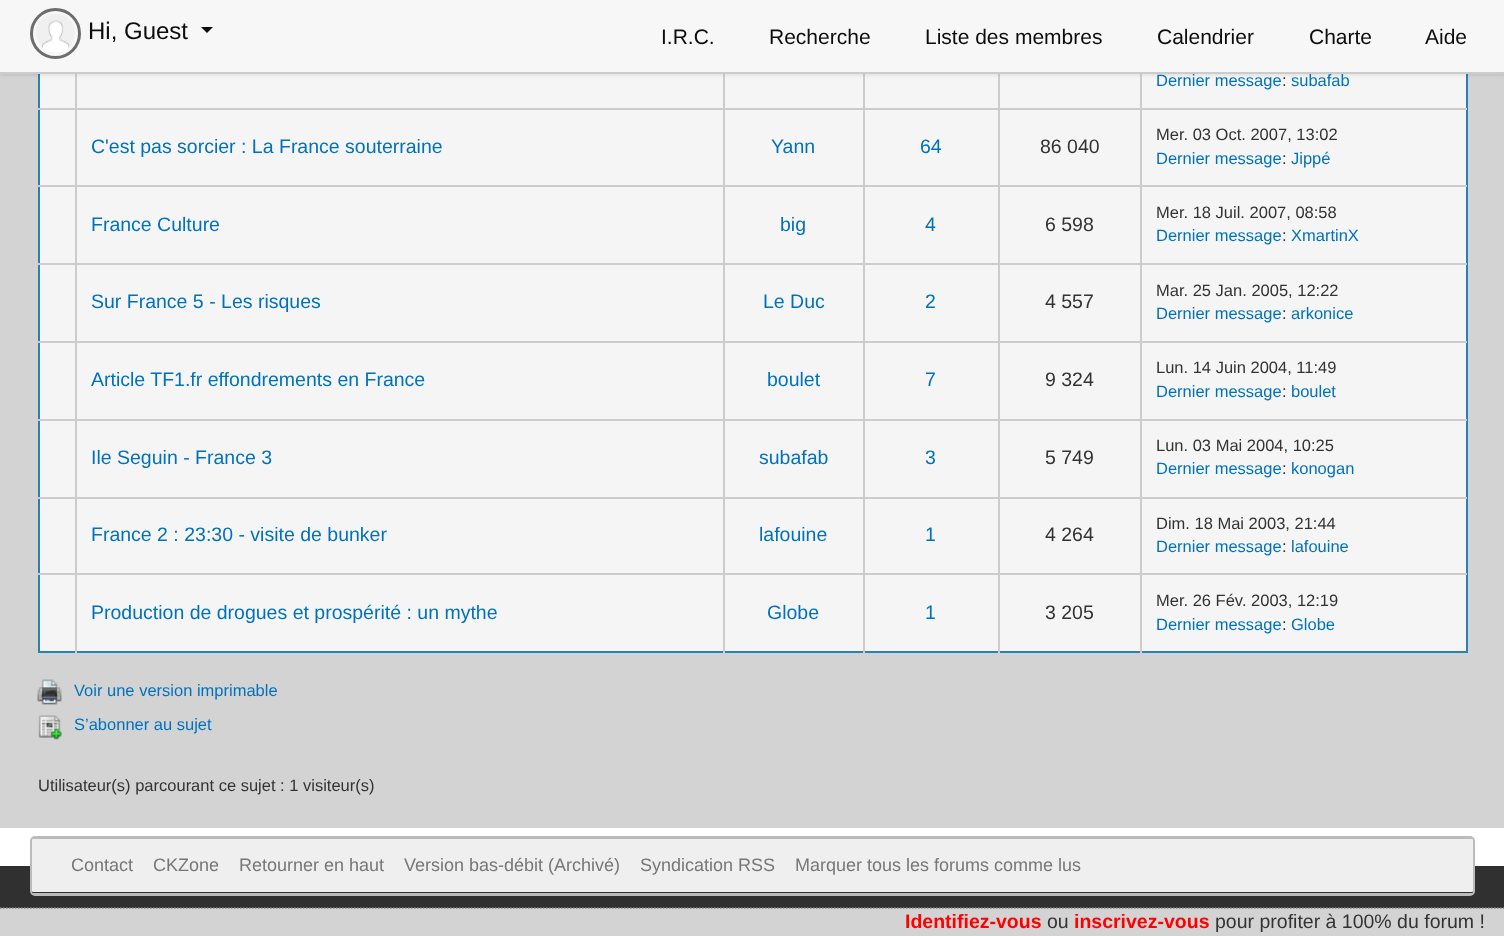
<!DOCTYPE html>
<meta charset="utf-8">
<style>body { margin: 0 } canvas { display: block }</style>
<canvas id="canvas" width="1504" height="936"></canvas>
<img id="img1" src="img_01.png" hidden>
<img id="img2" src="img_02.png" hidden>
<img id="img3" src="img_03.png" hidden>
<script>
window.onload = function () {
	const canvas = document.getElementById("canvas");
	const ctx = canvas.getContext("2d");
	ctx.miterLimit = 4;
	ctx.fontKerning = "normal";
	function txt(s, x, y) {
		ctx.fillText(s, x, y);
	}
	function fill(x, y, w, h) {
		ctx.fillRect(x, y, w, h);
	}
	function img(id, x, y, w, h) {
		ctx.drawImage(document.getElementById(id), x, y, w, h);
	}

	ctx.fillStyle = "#FFFFFF";
	fill(0, 0, 1504, 936);
	ctx.fillStyle = "#D3D3D3";
	fill(0, 74, 1504, 754);
	ctx.fillStyle = "#2980B9";
	fill(1466, 74, 2, 579);
	fill(38, 651, 1429, 2);
	fill(38, 74, 2, 579);
	ctx.fillStyle = "#F5F5F5";
	fill(40, 74, 35, 34);
	fill(77, 74, 646, 34);
	ctx.fillStyle = "#CCCCCC";
	fill(1140, 108, 327, 2);
	fill(1140, 185, 327, 2);
	fill(1140, 263, 327, 2);
	fill(1140, 341, 327, 2);
	fill(1140, 419, 327, 2);
	fill(1140, 497, 327, 2);
	fill(1140, 573, 327, 2);
	fill(1140, 573, 2, 80);
	fill(998, 573, 144, 2);
	fill(1140, 497, 2, 78);
	fill(998, 497, 144, 2);
	fill(1140, 419, 2, 79);
	fill(998, 419, 144, 2);
	fill(1140, 341, 2, 79);
	fill(998, 341, 144, 2);
	fill(1140, 263, 2, 79);
	fill(998, 263, 144, 2);
	fill(1140, 185, 2, 79);
	fill(998, 185, 144, 2);
	fill(1140, 108, 2, 78);
	fill(998, 108, 144, 2);
	fill(998, 573, 2, 80);
	fill(863, 573, 136, 2);
	fill(998, 497, 2, 78);
	fill(863, 497, 136, 2);
	fill(998, 419, 2, 79);
	fill(863, 419, 136, 2);
	fill(998, 341, 2, 79);
	fill(863, 341, 136, 2);
	fill(998, 263, 2, 79);
	fill(863, 263, 136, 2);
	fill(998, 185, 2, 79);
	fill(863, 185, 136, 2);
	fill(998, 108, 2, 78);
	fill(863, 108, 136, 2);
	fill(863, 573, 2, 80);
	fill(723, 573, 141, 2);
	fill(863, 497, 2, 78);
	fill(723, 497, 141, 2);
	fill(863, 419, 2, 79);
	fill(723, 419, 141, 2);
	fill(863, 341, 2, 79);
	fill(723, 341, 141, 2);
	fill(863, 263, 2, 79);
	fill(723, 263, 141, 2);
	fill(863, 185, 2, 79);
	fill(723, 185, 141, 2);
	fill(863, 108, 2, 78);
	fill(723, 108, 141, 2);
	fill(723, 573, 2, 80);
	fill(75, 573, 650, 2);
	fill(723, 497, 2, 78);
	fill(75, 497, 650, 2);
	fill(723, 419, 2, 79);
	fill(75, 419, 650, 2);
	fill(723, 341, 2, 79);
	fill(75, 341, 650, 2);
	fill(723, 263, 2, 79);
	fill(75, 263, 650, 2);
	fill(723, 185, 2, 79);
	fill(75, 185, 650, 2);
	fill(723, 108, 2, 78);
	fill(75, 108, 650, 2);
	fill(75, 573, 2, 80);
	fill(38, 573, 39, 2);
	fill(75, 497, 2, 78);
	fill(38, 497, 39, 2);
	fill(75, 419, 2, 79);
	fill(38, 419, 39, 2);
	fill(75, 341, 2, 79);
	fill(38, 341, 39, 2);
	fill(75, 263, 2, 79);
	fill(38, 263, 39, 2);
	fill(75, 185, 2, 79);
	fill(38, 185, 39, 2);
	fill(75, 108, 2, 78);
	fill(38, 108, 39, 2);
	fill(75, 74, 2, 36);
	ctx.fillStyle = "#F5F5F5";
	fill(725, 74, 138, 34);
	ctx.fillStyle = "#CCCCCC";
	fill(723, 74, 2, 36);
	ctx.fillStyle = "#F5F5F5";
	fill(865, 74, 133, 34);
	ctx.fillStyle = "#CCCCCC";
	fill(863, 74, 2, 36);
	ctx.fillStyle = "#F5F5F5";
	fill(1000, 74, 140, 34);
	ctx.fillStyle = "#CCCCCC";
	fill(998, 74, 2, 36);
	ctx.fillStyle = "#F5F5F5";
	fill(1142, 74, 324, 34);
	ctx.fillStyle = "#CCCCCC";
	fill(1140, 74, 2, 36);
	ctx.fillStyle = "rgba(0, 0, 0, 0.1)";
	ctx.filter = "blur(2px)";
	ctx.beginPath();
	ctx.rect(0, 2, 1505, 73);
	ctx.fill();
	ctx.filter = "none";
	ctx.fillStyle = "#F7F7F7";
	fill(0, 0, 1504, 72);
	ctx.fillStyle = "#CCCCCC";
	fill(0, 72, 1504, 2);
	ctx.beginPath();
	ctx.arc(55.5, 33.5, 24, 0, Math.PI * 2);
	ctx.strokeStyle = "#6D6D6D";
	ctx.lineWidth = 3;
	ctx.stroke();
	img("img1", 36, 14, 39, 38);
	ctx.fillStyle = "#0D0D0D";
	ctx.beginPath();
	ctx.moveTo(201, 27);
	ctx.lineTo(213, 27);
	ctx.lineTo(207, 33);
	ctx.closePath();
	ctx.fill();
	ctx.fillStyle = "#F5F5F5";
	fill(40, 110, 35, 75);
	fill(77, 110, 646, 75);
	fill(725, 110, 138, 75);
	fill(865, 110, 133, 75);
	fill(1000, 110, 140, 75);
	fill(1142, 110, 324, 75);
	fill(40, 187, 35, 76);
	fill(77, 187, 646, 76);
	fill(725, 187, 138, 76);
	fill(865, 187, 133, 76);
	fill(1000, 187, 140, 76);
	fill(1142, 187, 324, 76);
	fill(40, 265, 35, 76);
	fill(77, 265, 646, 76);
	fill(725, 265, 138, 76);
	fill(865, 265, 133, 76);
	fill(1000, 265, 140, 76);
	fill(1142, 265, 324, 76);
	fill(40, 343, 35, 76);
	fill(77, 343, 646, 76);
	fill(725, 343, 138, 76);
	fill(865, 343, 133, 76);
	fill(1000, 343, 140, 76);
	fill(1142, 343, 324, 76);
	fill(40, 421, 35, 76);
	fill(77, 421, 646, 76);
	fill(725, 421, 138, 76);
	fill(865, 421, 133, 76);
	fill(1000, 421, 140, 76);
	fill(1142, 421, 324, 76);
	fill(40, 499, 35, 74);
	fill(77, 499, 646, 74);
	fill(725, 499, 138, 74);
	fill(865, 499, 133, 74);
	fill(1000, 499, 140, 74);
	fill(1142, 499, 324, 74);
	fill(40, 575, 35, 76);
	fill(77, 575, 646, 76);
	fill(725, 575, 138, 76);
	fill(865, 575, 133, 76);
	fill(1000, 575, 140, 76);
	fill(1142, 575, 324, 76);
	img("img2", 37, 679, 25, 26);
	img("img3", 38, 715, 24, 25);
	ctx.fillStyle = "#303030";
	fill(0, 866, 1504, 42);
	ctx.fillStyle = "#EFEFEF";
	ctx.beginPath();
	ctx.moveTo(34, 838);
	ctx.lineTo(1470, 838);
	ctx.bezierCurveTo(1472, 838, 1473, 839, 1473, 840);
	ctx.lineTo(1473, 891);
	ctx.bezierCurveTo(1473, 892, 1472, 892, 1470, 892);
	ctx.lineTo(34, 892);
	ctx.bezierCurveTo(33, 892, 32, 892, 32, 891);
	ctx.lineTo(32, 840);
	ctx.bezierCurveTo(32, 839, 33, 838, 34, 838);
	ctx.closePath();
	ctx.fill();
	ctx.beginPath();
	ctx.roundRect(31, 837, 1443, 58, 4);
	ctx.strokeStyle = "#BBBBBB";
	ctx.lineWidth = 2;
	ctx.stroke();
	ctx.fillStyle = "#BBBBBB";
	fill(33, 838, 1440, 1);
	fill(33, 893, 1440, 1);
	ctx.fillStyle = "#D3D3D3";
	fill(0, 908, 1504, 28);
	ctx.beginPath();
	ctx.moveTo(0, 908);
	ctx.lineTo(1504.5, 908);
	ctx.strokeStyle = "#808080";
	ctx.lineWidth = 1.5;
	ctx.setLineDash([1.5, 1.5]);
	ctx.stroke();
	ctx.font = "24px Liberation Sans";
	ctx.fillStyle = "#0D0D0D";
	txt("Hi, Guest", 88, 39);
	ctx.font = "21px Liberation Sans";
	txt("I.R.C.", 661, 44);
	txt("Recherche", 769, 44);
	txt("Liste des membres", 925, 44);
	txt("Calendrier", 1157, 44);
	txt("Charte", 1309, 44);
	txt("Aide", 1425, 44);
	ctx.font = "16.5px Liberation Sans";
	ctx.fillStyle = "#0072BC";
	txt("Dernier message", 1156, 86);
	ctx.fillStyle = "#333333";
	txt(":", 1282, 86);
	ctx.fillStyle = "#0072BC";
	txt("subafab", 1291, 86);
	ctx.font = "19.5px Liberation Sans";
	txt("C'est pas sorcier : La France souterraine", 91, 153);
	txt("Yann", 771, 153);
	txt("64", 920, 153);
	ctx.fillStyle = "#333333";
	txt("86 040", 1040, 153);
	ctx.font = "16.5px Liberation Sans";
	txt("Mer. 03 Oct. 2007, 13:02", 1156, 140);
	ctx.fillStyle = "#0072BC";
	txt("Dernier message", 1156, 164);
	ctx.fillStyle = "#333333";
	txt(":", 1282, 164);
	ctx.fillStyle = "#0072BC";
	txt("Jippé", 1291, 164);
	ctx.font = "19.5px Liberation Sans";
	txt("France Culture", 91, 231);
	txt("big", 780, 231);
	txt("4", 925, 231);
	ctx.fillStyle = "#333333";
	txt("6 598", 1045, 231);
	ctx.font = "16.5px Liberation Sans";
	txt("Mer. 18 Juil. 2007, 08:58", 1156, 218);
	ctx.fillStyle = "#0072BC";
	txt("Dernier message", 1156, 241);
	ctx.fillStyle = "#333333";
	txt(":", 1282, 241);
	ctx.fillStyle = "#0072BC";
	txt("XmartinX", 1291, 241);
	ctx.font = "19.5px Liberation Sans";
	txt("Sur France 5 - Les risques", 91, 308);
	txt("Le Duc", 763, 308);
	txt("2", 925, 308);
	ctx.fillStyle = "#333333";
	txt("4 557", 1045, 308);
	ctx.font = "16.5px Liberation Sans";
	txt("Mar. 25 Jan. 2005, 12:22", 1156, 296);
	ctx.fillStyle = "#0072BC";
	txt("Dernier message", 1156, 319);
	ctx.fillStyle = "#333333";
	txt(":", 1282, 319);
	ctx.fillStyle = "#0072BC";
	txt("arkonice", 1291, 319);
	ctx.font = "19.5px Liberation Sans";
	txt("Article TF1.fr effondrements en France", 91, 386);
	txt("boulet", 767, 386);
	txt("7", 925, 386);
	ctx.fillStyle = "#333333";
	txt("9 324", 1045, 386);
	ctx.font = "16.5px Liberation Sans";
	txt("Lun. 14 Juin 2004, 11:49", 1156, 373);
	ctx.fillStyle = "#0072BC";
	txt("Dernier message", 1156, 397);
	ctx.fillStyle = "#333333";
	txt(":", 1282, 397);
	ctx.fillStyle = "#0072BC";
	txt("boulet", 1291, 397);
	ctx.font = "19.5px Liberation Sans";
	txt("Ile Seguin - France 3", 91, 464);
	txt("subafab", 759, 464);
	txt("3", 925, 464);
	ctx.fillStyle = "#333333";
	txt("5 749", 1045, 464);
	ctx.font = "16.5px Liberation Sans";
	txt("Lun. 03 Mai 2004, 10:25", 1156, 451);
	ctx.fillStyle = "#0072BC";
	txt("Dernier message", 1156, 474);
	ctx.fillStyle = "#333333";
	txt(":", 1282, 474);
	ctx.fillStyle = "#0072BC";
	txt("konogan", 1291, 474);
	ctx.font = "19.5px Liberation Sans";
	txt("France 2 : 23:30 - visite de bunker", 91, 541);
	txt("lafouine", 759, 541);
	txt("1", 925, 541);
	ctx.fillStyle = "#333333";
	txt("4 264", 1045, 541);
	ctx.font = "16.5px Liberation Sans";
	txt("Dim. 18 Mai 2003, 21:44", 1156, 529);
	ctx.fillStyle = "#0072BC";
	txt("Dernier message", 1156, 552);
	ctx.fillStyle = "#333333";
	txt(":", 1282, 552);
	ctx.fillStyle = "#0072BC";
	txt("lafouine", 1291, 552);
	ctx.font = "19.5px Liberation Sans";
	txt("Production de drogues et prospérité : un mythe", 91, 619);
	txt("Globe", 767, 619);
	txt("1", 925, 619);
	ctx.fillStyle = "#333333";
	txt("3 205", 1045, 619);
	ctx.font = "16.5px Liberation Sans";
	txt("Mer. 26 Fév. 2003, 12:19", 1156, 606);
	ctx.fillStyle = "#0072BC";
	txt("Dernier message", 1156, 630);
	ctx.fillStyle = "#333333";
	txt(":", 1282, 630);
	ctx.fillStyle = "#0072BC";
	txt("Globe", 1291, 630);
	txt("Voir une version imprimable", 74, 696);
	txt("S’abonner au sujet", 74, 730);
	ctx.fillStyle = "#333333";
	txt("Utilisateur(s) parcourant ce sujet : 1 visiteur(s)", 38, 791);
	ctx.font = "18px Liberation Sans";
	ctx.fillStyle = "#777777";
	txt("Contact", 71, 871);
	txt("CKZone", 153, 871);
	txt("Retourner en haut", 239, 871);
	txt("Version bas-débit (Archivé)", 404, 871);
	txt("Syndication RSS", 640, 871);
	txt("Marquer tous les forums comme lus", 795, 871);
	ctx.font = "bold 19.5px Liberation Sans";
	ctx.fillStyle = "#FF0000";
	txt("Identifiez-vous", 905, 928);
	ctx.font = "19.5px Liberation Sans";
	ctx.fillStyle = "#333333";
	txt("ou", 1047, 928);
	ctx.font = "bold 19.5px Liberation Sans";
	ctx.fillStyle = "#FF0000";
	txt("inscrivez-vous", 1074, 928);
	ctx.font = "19.5px Liberation Sans";
	ctx.fillStyle = "#333333";
	txt("pour profiter à 100% du forum !", 1215, 928);
};
</script>
